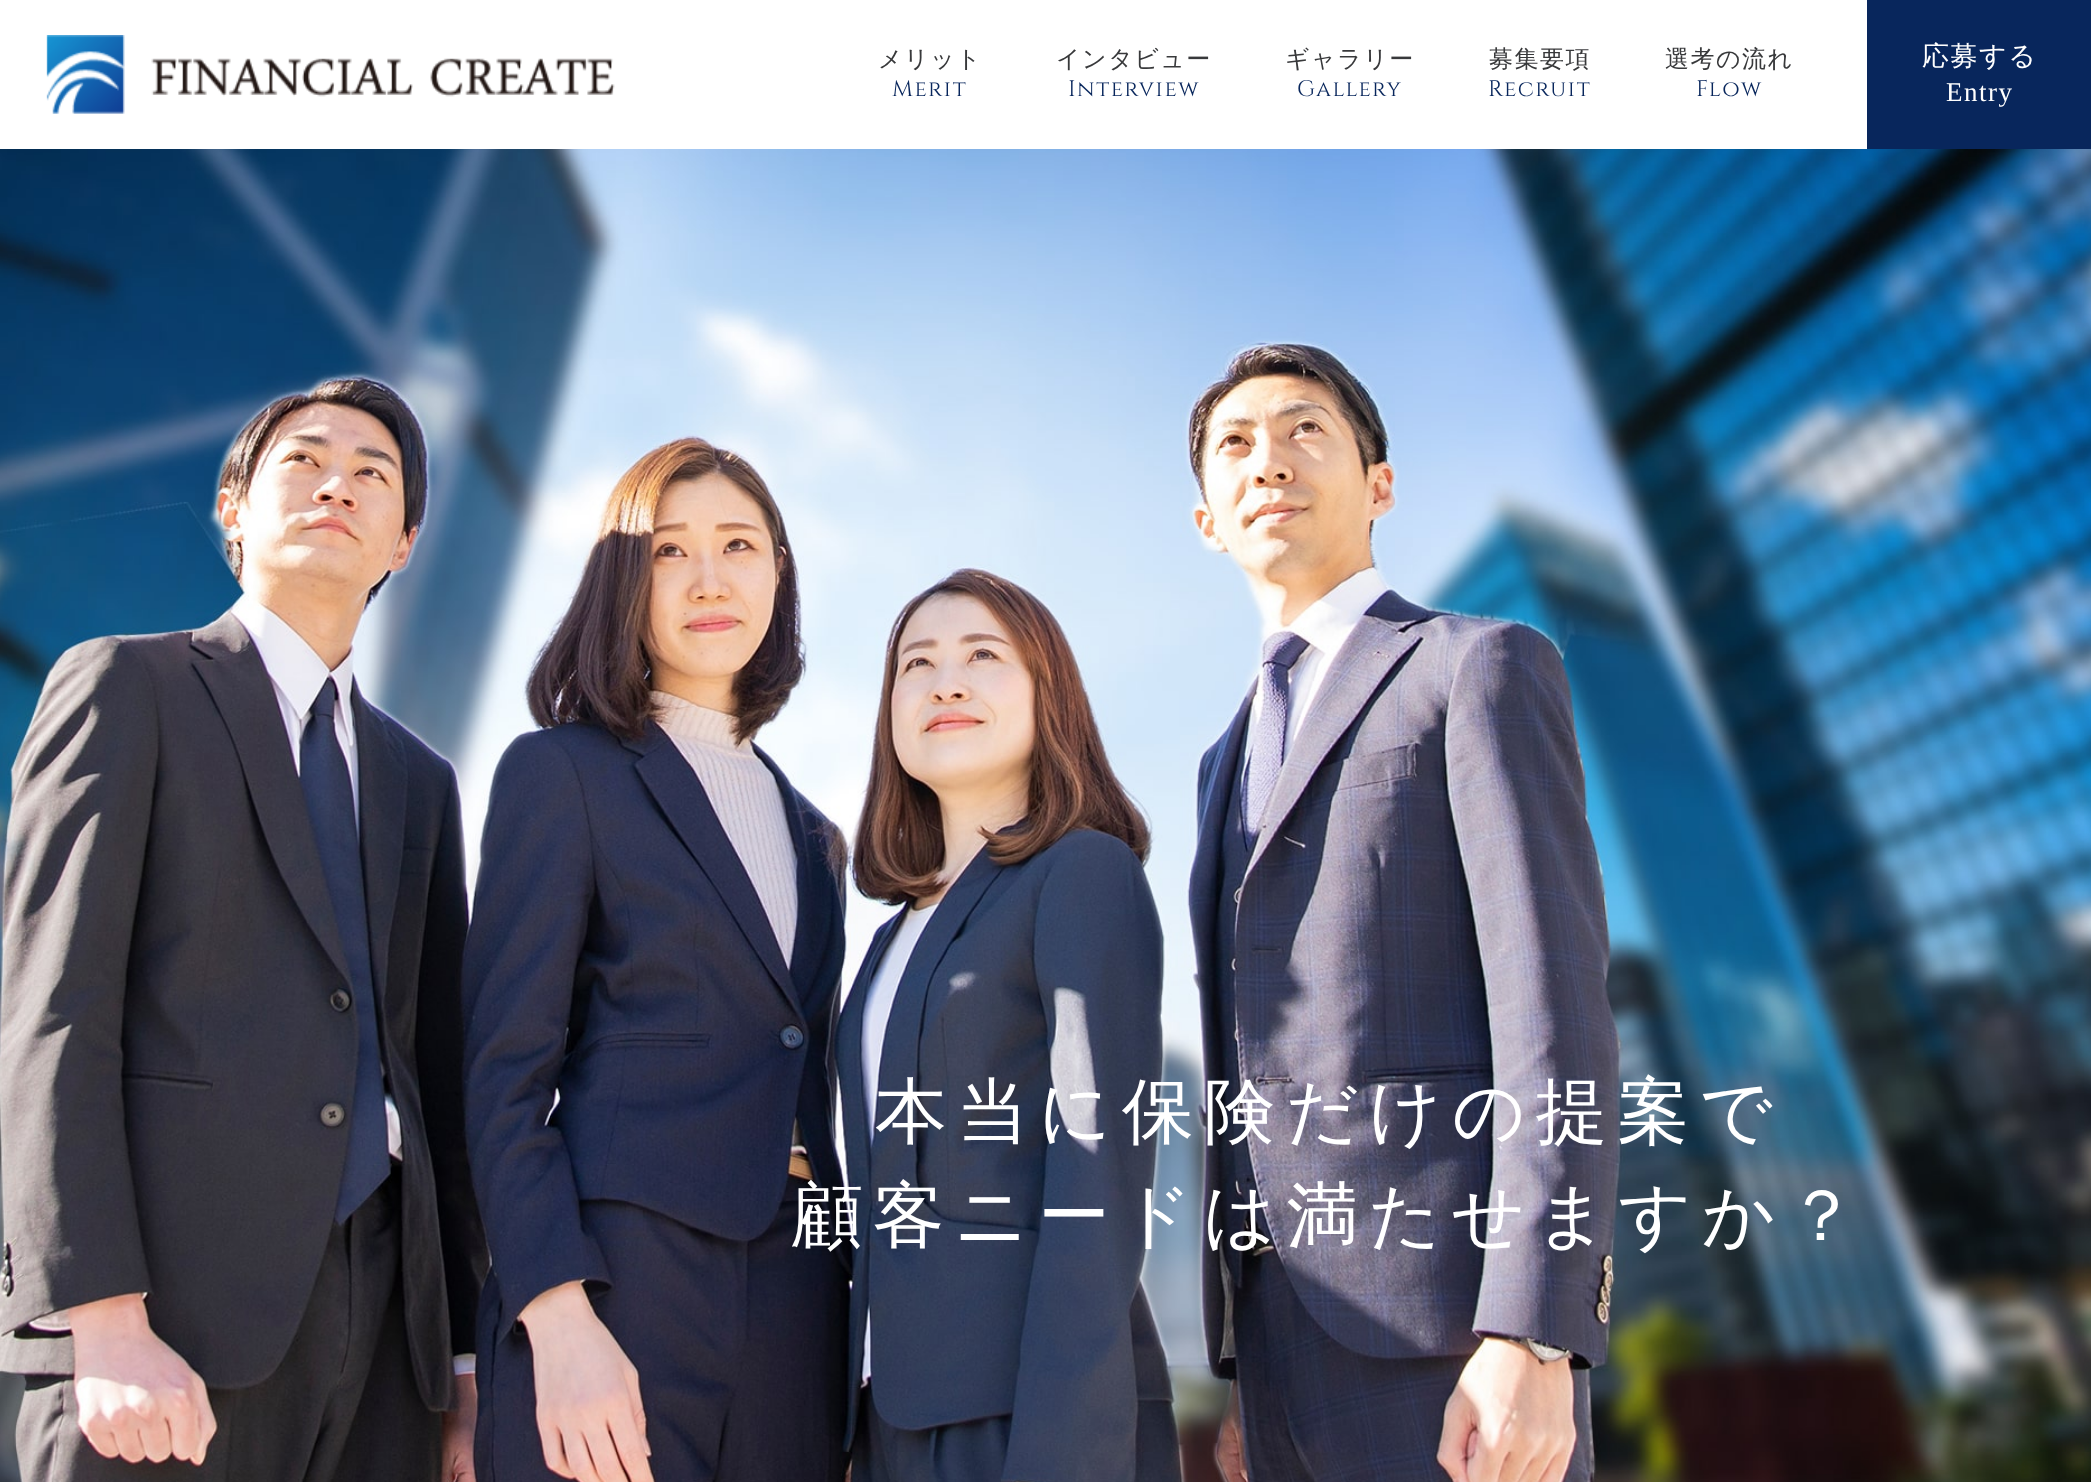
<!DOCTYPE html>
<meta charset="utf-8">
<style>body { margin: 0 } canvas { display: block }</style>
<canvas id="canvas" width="2091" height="1482"></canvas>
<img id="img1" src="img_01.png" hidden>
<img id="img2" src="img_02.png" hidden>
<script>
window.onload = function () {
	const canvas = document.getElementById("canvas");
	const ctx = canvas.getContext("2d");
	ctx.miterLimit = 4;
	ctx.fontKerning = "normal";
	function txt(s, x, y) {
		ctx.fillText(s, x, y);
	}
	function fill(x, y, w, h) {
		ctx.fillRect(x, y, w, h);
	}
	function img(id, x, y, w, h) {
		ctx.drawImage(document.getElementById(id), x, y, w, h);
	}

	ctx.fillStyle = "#FFFFFF";
	fill(0, 0, 2091, 1482);
	img("img1", 46, 35, 569, 79);
	ctx.fillStyle = "#08265C";
	fill(1867, 0, 224, 149);
	img("img2", 0, 149, 2091, 1333);
	ctx.letterSpacing = "1.5px";
	ctx.font = "500 24px WenQuanYi Zen Hei";
	ctx.fillStyle = "#38393B";
	txt("メリット", 878, 67);
	ctx.font = "22.5px Cinzel";
	ctx.fillStyle = "#08265C";
	txt("Merit", 892, 96);
	ctx.font = "500 24px WenQuanYi Zen Hei";
	ctx.fillStyle = "#38393B";
	txt("インタビュー", 1056, 67);
	ctx.font = "22.5px Cinzel";
	ctx.fillStyle = "#08265C";
	txt("Interview", 1068, 96);
	ctx.font = "500 24px WenQuanYi Zen Hei";
	ctx.fillStyle = "#38393B";
	txt("ギャラリー", 1285, 67);
	ctx.font = "22.5px Cinzel";
	ctx.fillStyle = "#08265C";
	txt("Gallery", 1297, 96);
	ctx.font = "500 24px WenQuanYi Zen Hei";
	ctx.fillStyle = "#38393B";
	txt("募集要項", 1489, 67);
	ctx.font = "22.5px Cinzel";
	ctx.fillStyle = "#08265C";
	txt("Recruit", 1488, 96);
	ctx.font = "500 24px WenQuanYi Zen Hei";
	ctx.fillStyle = "#38393B";
	txt("選考の流れ", 1665, 67);
	ctx.font = "22.5px Cinzel";
	ctx.fillStyle = "#08265C";
	txt("Flow", 1696, 96);
	ctx.font = "500 27px WenQuanYi Zen Hei";
	ctx.fillStyle = "#FFFFFF";
	txt("応募する", 1922, 65);
	ctx.font = "27px Liberation Serif";
	txt("Entry", 1946, 101);
	ctx.letterSpacing = "10px";
	ctx.font = "500 71.75px WenQuanYi Zen Hei";
	txt("本当に保険だけの提案で", 875, 1136);
	txt("顧客ニードは満たせますか？", 791, 1240);
};
</script>
